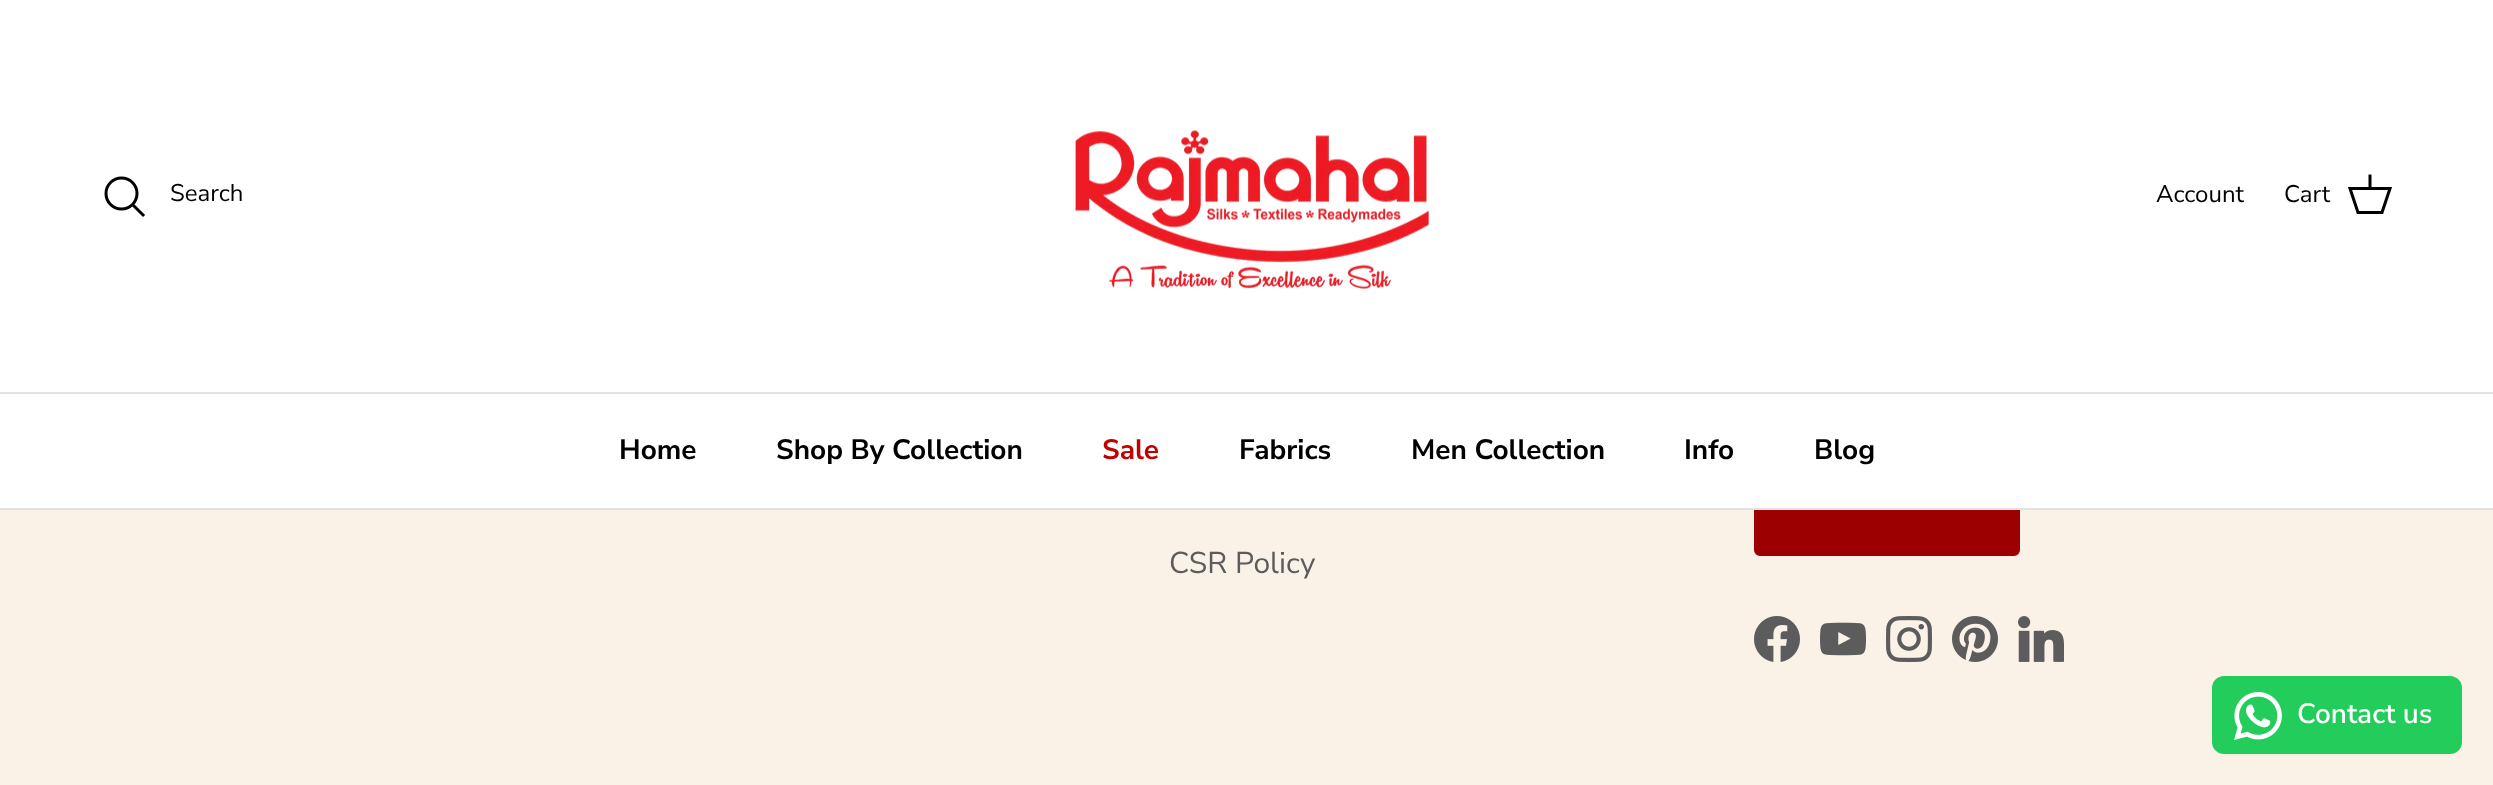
<!DOCTYPE html>
<meta charset="utf-8">
<style>body { margin: 0 } canvas { display: block }</style>
<canvas id="canvas" width="2493" height="785"></canvas>
<img id="img1" src="img_01.png" hidden>
<img id="img2" src="img_02.png" hidden>
<img id="img3" src="img_03.png" hidden>
<img id="img4" src="img_04.png" hidden>
<img id="img5" src="img_05.png" hidden>
<img id="img6" src="img_06.png" hidden>
<img id="img7" src="img_07.png" hidden>
<script>
window.onload = function () {
	const canvas = document.getElementById("canvas");
	const ctx = canvas.getContext("2d");
	ctx.miterLimit = 4;
	ctx.fontKerning = "normal";
	function txt(s, x, y) {
		ctx.fillText(s, x, y);
	}
	function fill(x, y, w, h) {
		ctx.fillRect(x, y, w, h);
	}
	function round(x, y, w, h, r) {
		ctx.beginPath();
		ctx.roundRect(x, y, w, h, r);
		ctx.fill();
	}
	function img(id, x, y, w, h) {
		ctx.drawImage(document.getElementById(id), x, y, w, h);
	}

	ctx.fillStyle = "#FAF2E6";
	fill(0, 0, 2493, 785);
	ctx.fillStyle = "#FFFFFF";
	fill(0, 0, 2493, 392);
	ctx.fillStyle = "#DFE3E8";
	fill(0, 392, 2493, 2);
	ctx.beginPath();
	ctx.arc(121.5, 193.5, 15.5, 0, Math.PI * 2);
	ctx.strokeStyle = "#000000";
	ctx.lineWidth = 3;
	ctx.stroke();
	ctx.beginPath();
	ctx.moveTo(134, 206);
	ctx.lineTo(143, 215);
	ctx.lineCap = "square";
	ctx.stroke();
	img("img1", 1075, 130, 354, 159);
	ctx.beginPath();
	ctx.moveTo(2350, 188.5);
	ctx.lineTo(2390, 188.5);
	ctx.lineTo(2382, 212.5);
	ctx.lineTo(2358, 212.5);
	ctx.closePath();
	ctx.lineCap = "butt";
	ctx.stroke();
	ctx.beginPath();
	ctx.moveTo(2370, 188);
	ctx.lineTo(2370, 176);
	ctx.lineCap = "square";
	ctx.stroke();
	ctx.fillStyle = "#9C0000";
	ctx.beginPath();
	ctx.roundRect(1755, 465, 264, 90, 5);
	ctx.fill();
	ctx.strokeStyle = "#9C0000";
	ctx.lineWidth = 2;
	ctx.stroke();
	ctx.fillStyle = "#DFE3E8";
	fill(0, 508, 2493, 2);
	ctx.fillStyle = "#FFFFFF";
	fill(0, 394, 2493, 114);
	img("img2", 1754, 616, 46, 46);
	img("img3", 1820, 622, 46, 34);
	img("img4", 1886, 616, 46, 46);
	img("img5", 1952, 616, 46, 46);
	img("img6", 2018, 616, 46, 46);
	ctx.fillStyle = "#22CD5B";
	round(2212, 676, 250, 78, 12);
	img("img7", 2234, 692, 48, 48);
	ctx.font = "24px Nunito Sans";
	ctx.fillStyle = "#000000";
	txt("Search", 170, 201);
	txt("Account", 2156, 202);
	txt("Cart", 2284, 202);
	ctx.font = "bold 28px Nunito Sans";
	txt("Home", 619, 459);
	txt("Shop By Collection", 776, 459);
	ctx.fillStyle = "#C20000";
	txt("Sale", 1102, 459);
	ctx.fillStyle = "#000000";
	txt("Fabrics", 1239, 459);
	txt("Men Collection", 1411, 459);
	txt("Info", 1684, 459);
	txt("Blog", 1814, 459);
	ctx.font = "30px Nunito Sans";
	ctx.fillStyle = "#5C5C5C";
	txt("CSR Policy", 1169, 573);
	ctx.font = "600 28px Nunito Sans";
	ctx.fillStyle = "#FFFFFF";
	txt("Contact us", 2297, 723);
};
</script>
